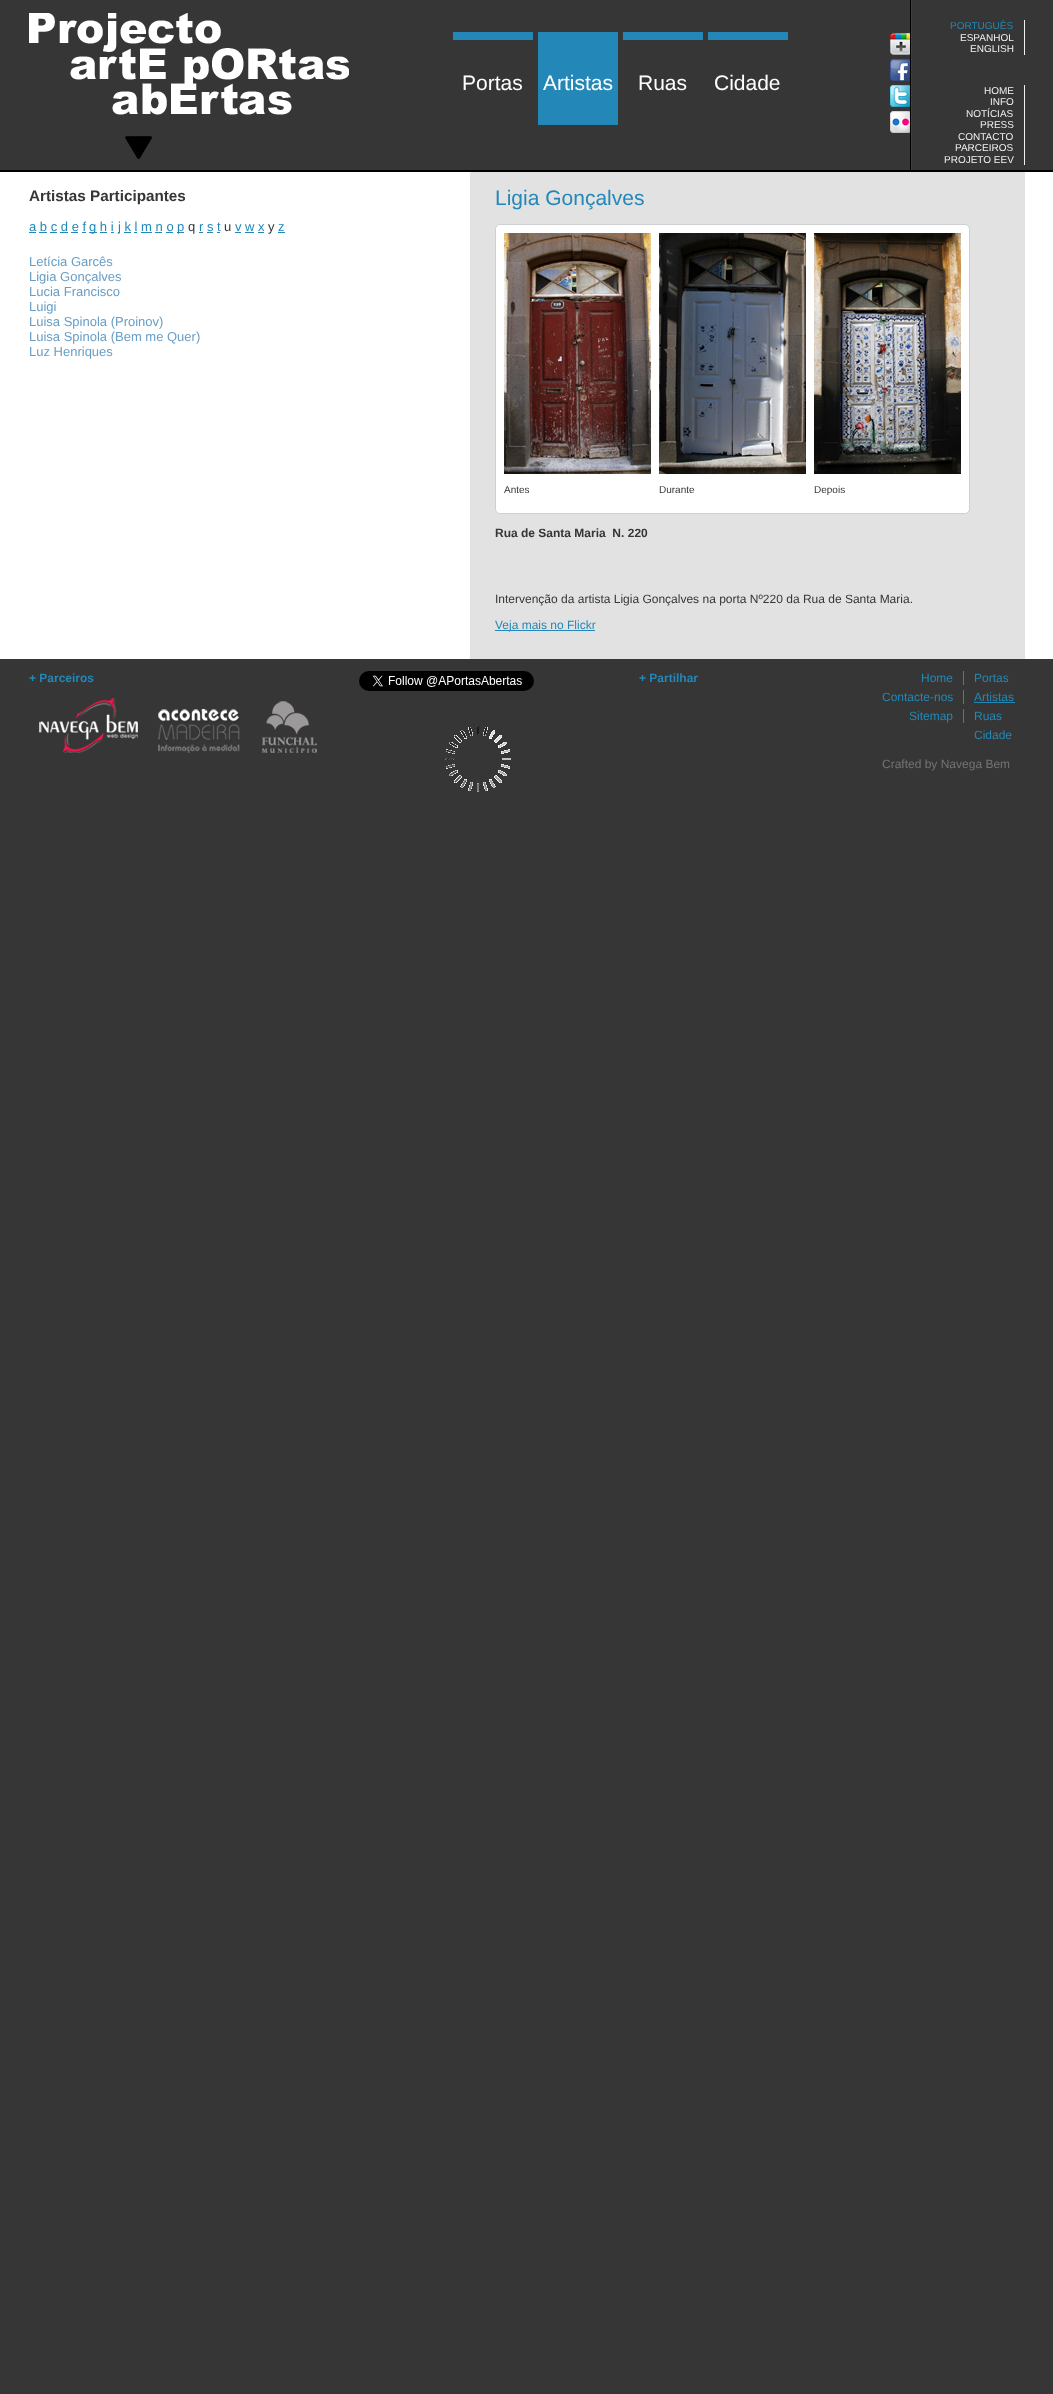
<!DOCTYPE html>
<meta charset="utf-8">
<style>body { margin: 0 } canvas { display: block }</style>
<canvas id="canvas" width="1053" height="2394"></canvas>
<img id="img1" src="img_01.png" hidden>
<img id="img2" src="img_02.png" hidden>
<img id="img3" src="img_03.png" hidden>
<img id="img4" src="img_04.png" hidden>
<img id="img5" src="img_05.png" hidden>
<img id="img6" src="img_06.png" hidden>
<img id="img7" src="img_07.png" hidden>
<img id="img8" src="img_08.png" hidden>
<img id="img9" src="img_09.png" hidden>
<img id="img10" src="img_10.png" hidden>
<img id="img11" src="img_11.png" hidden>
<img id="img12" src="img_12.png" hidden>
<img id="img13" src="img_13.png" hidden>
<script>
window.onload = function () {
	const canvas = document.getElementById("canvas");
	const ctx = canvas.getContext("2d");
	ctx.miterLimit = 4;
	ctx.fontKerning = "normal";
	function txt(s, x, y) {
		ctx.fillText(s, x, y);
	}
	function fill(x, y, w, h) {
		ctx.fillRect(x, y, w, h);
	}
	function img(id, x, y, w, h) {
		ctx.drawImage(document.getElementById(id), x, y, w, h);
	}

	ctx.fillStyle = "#353635";
	fill(0, 0, 1053, 2394);
	ctx.fillStyle = "#000000";
	fill(0, 170, 1053, 2);
	img("img1", 29, 13, 320, 146);
	ctx.fillStyle = "#2388B7";
	fill(453, 32, 80, 8);
	fill(538, 32, 80, 93);
	fill(623, 32, 80, 8);
	fill(708, 32, 80, 8);
	ctx.fillStyle = "#000000";
	fill(910, 0, 1, 170);
	img("img2", 890, 33, 20, 22);
	img("img3", 890, 59, 20, 22);
	img("img4", 890, 85, 20, 22);
	img("img5", 890, 111, 20, 22);
	ctx.fillStyle = "#3F3F3F";
	fill(911, 0, 1, 170);
	ctx.fillStyle = "#F0F0F0";
	fill(1024, 20, 1, 35);
	fill(1024, 85, 1, 80);
	ctx.fillStyle = "#FFFFFF";
	fill(0, 172, 1053, 487);
	ctx.fillStyle = "#2388B7";
	fill(29, 232, 7, 1);
	fill(89, 232, 8, 1);
	fill(118, 232, 2, 1);
	fill(177, 232, 7, 1);
	fill(199, 232, 4, 1);
	fill(235, 232, 6, 1);
	fill(278, 232, 7, 1);
	fill(39, 232, 8, 1);
	fill(50, 232, 7, 1);
	fill(60, 232, 8, 1);
	fill(71, 232, 7, 1);
	fill(82, 232, 4, 1);
	fill(100, 232, 7, 1);
	fill(111, 232, 3, 1);
	fill(124, 232, 7, 1);
	fill(134, 232, 3, 1);
	fill(141, 232, 11, 1);
	fill(155, 232, 7, 1);
	fill(166, 232, 7, 1);
	fill(207, 232, 6, 1);
	fill(217, 232, 3, 1);
	fill(245, 232, 9, 1);
	fill(258, 232, 6, 1);
	ctx.fillStyle = "#E2E2E2";
	fill(470, 172, 555, 487);
	ctx.fillStyle = "#FFFFFF";
	ctx.beginPath();
	ctx.roundRect(495.5, 224.5, 474, 289, 4.5);
	ctx.fill();
	ctx.strokeStyle = "#CFD0D1";
	ctx.stroke();
	img("img6", 504, 233, 147, 241);
	img("img7", 659, 233, 147, 241);
	img("img8", 814, 233, 147, 241);
	ctx.fillStyle = "#2388B7";
	fill(495, 630, 100, 1);
	img("img9", 39, 698, 99, 55);
	img("img10", 158, 709, 82, 44);
	img("img11", 262, 701, 55, 52);
	img("img12", 359, 671, 175, 20);
	img("img13", 445, 726, 66, 66);
	fill(963, 671, 1, 14);
	fill(963, 690, 1, 14);
	fill(963, 709, 1, 14);
	fill(974, 702, 41, 1);
	ctx.font = "21px Liberation Sans";
	ctx.fillStyle = "#FFFFFF";
	txt("Portas", 462, 90);
	txt("Artistas", 543, 90);
	txt("Ruas", 638, 90);
	txt("Cidade", 714, 90);
	ctx.font = "10px Liberation Sans";
	ctx.fillStyle = "#2388B7";
	txt("PORTUGUÊS", 950, 29);
	ctx.fillStyle = "#F0F0F0";
	txt("ESPANHOL", 960, 41);
	txt("ENGLISH", 970, 52);
	txt("HOME", 984, 94);
	txt("INFO", 990, 105);
	txt("NOTÍCIAS", 966, 117);
	txt("PRESS", 980, 128);
	txt("CONTACTO", 958, 140);
	txt("PARCEIROS", 955, 151);
	txt("PROJETO EEV", 944, 163);
	ctx.font = "bold 15.25px Liberation Sans";
	ctx.fillStyle = "#353635";
	txt("Artistas Participantes", 29, 201);
	ctx.font = "13px Liberation Sans";
	ctx.fillStyle = "#2388B7";
	txt("a b c d e f", 29, 231);
	txt("g h i", 89, 231);
	txt("j k l m n o", 118, 231);
	txt("p", 177, 231);
	ctx.fillStyle = "#353635";
	txt("q", 188, 231);
	ctx.fillStyle = "#2388B7";
	txt("r s t", 199, 231);
	ctx.fillStyle = "#353635";
	txt("u", 224, 231);
	ctx.fillStyle = "#2388B7";
	txt("v w x", 235, 231);
	ctx.fillStyle = "#353635";
	txt("y", 268, 231);
	ctx.fillStyle = "#2388B7";
	txt("z", 278, 231);
	ctx.fillStyle = "#679EC5";
	txt("Letícia Garcês", 29, 266);
	txt("Ligia Gonçalves", 29, 281);
	txt("Lucia Francisco", 29, 296);
	txt("Luigi", 29, 311);
	txt("Luisa Spinola (Proinov)", 29, 326);
	txt("Luisa Spinola (Bem me Quer)", 29, 341);
	txt("Luz Henriques", 29, 356);
	ctx.font = "21px Liberation Sans";
	ctx.fillStyle = "#2388B7";
	txt("Ligia Gonçalves", 495, 205);
	ctx.font = "10px Liberation Sans";
	ctx.fillStyle = "#353635";
	txt("Antes", 504, 493);
	txt("Durante", 659, 493);
	txt("Depois", 814, 493);
	ctx.font = "bold 12px Liberation Sans";
	txt("Rua de Santa Maria  N. 220", 495, 537);
	ctx.font = "12px Liberation Sans";
	txt("Intervenção da artista Ligia Gonçalves na porta Nº220 da Rua de Santa Maria.", 495, 603);
	ctx.fillStyle = "#2388B7";
	txt("Veja mais no Flickr", 495, 629);
	ctx.font = "bold 12px Liberation Sans";
	txt("+ Parceiros", 29, 682);
	txt("+ Partilhar", 639, 682);
	ctx.font = "12px Liberation Sans";
	txt("Home", 921, 682);
	txt("Contacte-nos", 882, 701);
	txt("Sitemap", 909, 720);
	txt("Portas", 974, 682);
	txt("Artistas", 974, 701);
	txt("Ruas", 974, 720);
	txt("Cidade", 974, 739);
	ctx.fillStyle = "#747474";
	txt("Crafted by Navega Bem", 882, 768);
};
</script>
